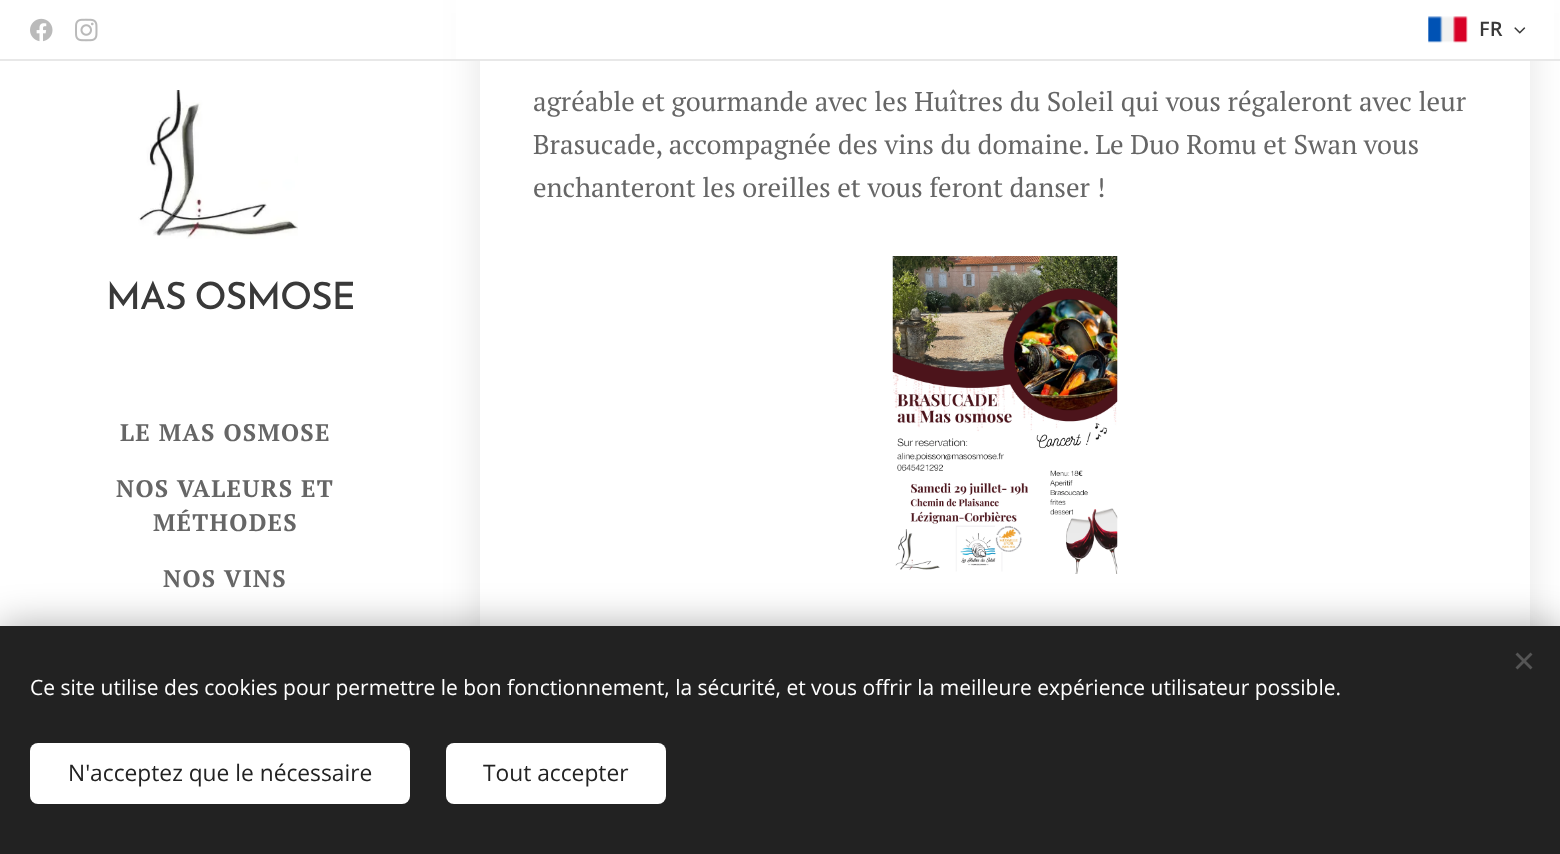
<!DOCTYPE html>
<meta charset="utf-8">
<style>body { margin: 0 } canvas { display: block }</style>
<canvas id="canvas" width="1560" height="854"></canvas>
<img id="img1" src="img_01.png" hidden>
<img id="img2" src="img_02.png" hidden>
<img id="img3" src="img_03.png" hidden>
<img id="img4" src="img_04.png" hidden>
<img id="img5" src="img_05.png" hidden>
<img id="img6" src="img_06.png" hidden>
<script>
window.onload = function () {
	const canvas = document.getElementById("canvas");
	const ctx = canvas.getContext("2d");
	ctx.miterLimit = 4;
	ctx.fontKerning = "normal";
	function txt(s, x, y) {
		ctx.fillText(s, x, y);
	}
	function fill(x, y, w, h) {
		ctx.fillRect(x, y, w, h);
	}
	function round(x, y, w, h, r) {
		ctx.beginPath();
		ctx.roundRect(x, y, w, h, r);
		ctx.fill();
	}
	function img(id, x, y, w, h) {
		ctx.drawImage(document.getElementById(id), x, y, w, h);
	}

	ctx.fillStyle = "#FFFFFF";
	fill(0, 0, 1560, 854);
	ctx.save();
	ctx.beginPath();
	ctx.moveTo(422, 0);
	ctx.lineTo(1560, 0);
	ctx.lineTo(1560, 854);
	ctx.lineTo(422, 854);
	ctx.closePath();
	ctx.moveTo(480, -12);
	ctx.lineTo(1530, -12);
	ctx.lineTo(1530, 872);
	ctx.lineTo(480, 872);
	ctx.closePath();
	ctx.clip("evenodd");
	ctx.fillStyle = "rgba(0, 0, 0, 0.1)";
	ctx.filter = "blur(19px)";
	ctx.beginPath();
	ctx.rect(480, 0, 1050, 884);
	ctx.fill();
	ctx.filter = "none";
	ctx.restore();
	fill(456, 0, 1098, 59);
	img("img1", 30, 18, 23, 24);
	img("img2", 75, 18, 23, 24);
	img("img3", 1428, 16, 40, 27);
	img("img4", 1514, 27, 12, 7);
	ctx.fillStyle = "#E8E8E8";
	fill(0, 59, 1560, 2);
	img("img5", 138, 90, 160, 149);
	img("img6", 892, 256, 226, 318);
	ctx.fillStyle = "rgba(0, 0, 0, 0.33)";
	ctx.filter = "blur(19px)";
	ctx.beginPath();
	ctx.rect(0, 626, 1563, 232);
	ctx.fill();
	ctx.filter = "none";
	ctx.fillStyle = "#222222";
	fill(0, 626, 1560, 228);
	ctx.fillStyle = "#555555";
	ctx.beginPath();
	ctx.moveTo(1515.5, 667.5);
	ctx.lineTo(1530.5, 652.5);
	ctx.lineTo(1532.5, 654.5);
	ctx.lineTo(1517.5, 669.5);
	ctx.closePath();
	ctx.fill();
	ctx.beginPath();
	ctx.moveTo(1517.5, 652.5);
	ctx.lineTo(1532.5, 667.5);
	ctx.lineTo(1530.5, 669.5);
	ctx.lineTo(1515.5, 654.5);
	ctx.closePath();
	ctx.fill();
	ctx.fillStyle = "#FFFFFF";
	round(30, 743, 380, 61, 8);
	round(446, 743, 220, 61, 8);
	ctx.font = "600 20px Open Sans";
	ctx.fillStyle = "#393939";
	txt("FR", 1479, 36);
	ctx.save();
	ctx.beginPath();
	ctx.rect(98, 270, 255, 53);
	ctx.clip();
	ctx.letterSpacing = "-1.1px";
	ctx.wordSpacing = "-2px";
	ctx.font = "500 37.5px Josefin Sans";
	txt("MAS OSMOSE", 106, 309);
	ctx.restore();
	ctx.letterSpacing = "1.25px";
	ctx.font = "bold 24px PT Serif";
	ctx.fillStyle = "#666666";
	txt("LE MAS OSMOSE", 120, 441);
	txt("NOS VALEURS ET", 116, 497);
	txt("MÉTHODES", 153, 531);
	txt("NOS VINS", 163, 587);
	ctx.letterSpacing = "0px";
	ctx.font = "27px PT Serif";
	txt("agréable et gourmande avec les Huîtres du Soleil qui vous régaleront avec leur", 533, 111);
	txt("Brasucade, accompagnée des vins du domaine. Le Duo Romu et Swan vous", 533, 154);
	txt("enchanteront les oreilles et vous feront danser !", 533, 197);
	ctx.font = "21px Open Sans";
	ctx.fillStyle = "#FFFFFF";
	txt("Ce site utilise des cookies pour permettre le bon fonctionnement, la sécurité, et vous offrir la meilleure expérience utilisateur possible.", 30, 695);
	ctx.font = "22.75px Open Sans";
	ctx.fillStyle = "#222222";
	txt("N'acceptez que le nécessaire", 68, 781);
	txt("Tout accepter", 483, 781);
};
</script>
